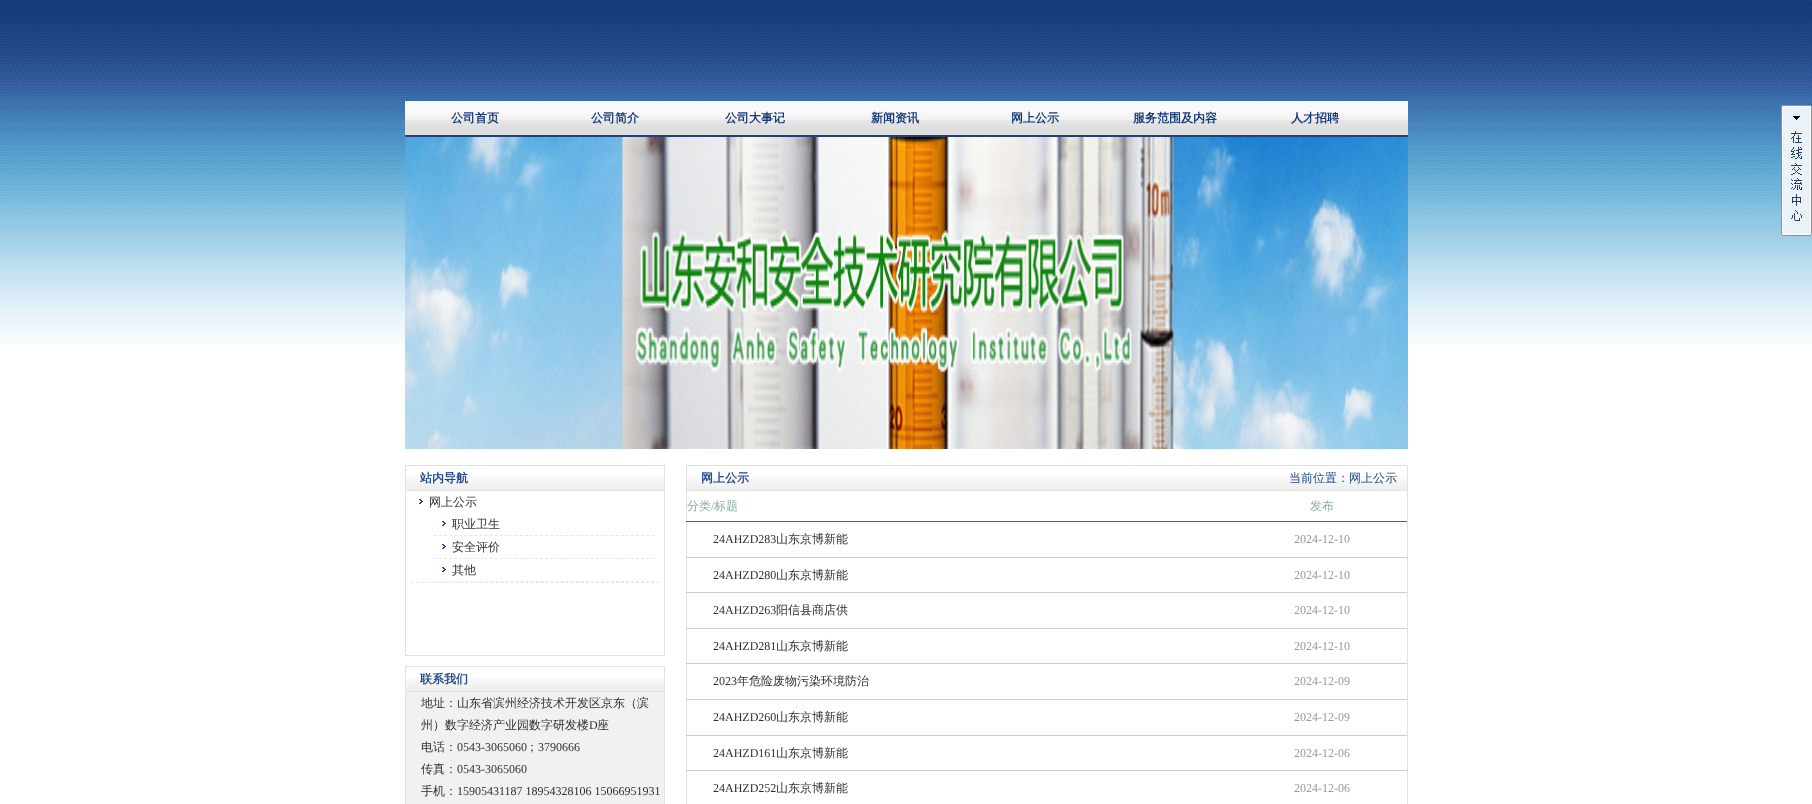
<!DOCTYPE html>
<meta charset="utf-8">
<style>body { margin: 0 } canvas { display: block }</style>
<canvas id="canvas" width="1812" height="804"></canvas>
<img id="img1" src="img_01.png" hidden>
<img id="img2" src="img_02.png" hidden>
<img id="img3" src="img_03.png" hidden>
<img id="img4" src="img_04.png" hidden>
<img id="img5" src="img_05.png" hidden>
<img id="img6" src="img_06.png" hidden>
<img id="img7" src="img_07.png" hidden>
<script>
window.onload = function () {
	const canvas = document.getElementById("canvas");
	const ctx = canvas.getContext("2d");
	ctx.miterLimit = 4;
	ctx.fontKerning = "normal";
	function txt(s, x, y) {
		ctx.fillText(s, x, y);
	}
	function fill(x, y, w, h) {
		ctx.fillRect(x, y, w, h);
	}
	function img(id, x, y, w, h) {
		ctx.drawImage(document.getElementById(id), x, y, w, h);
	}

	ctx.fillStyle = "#FFFFFF";
	fill(0, 0, 1812, 804);
	img("img1", 0, 0, 1812, 344);
	img("img2", 405, 101, 1003, 36);
	img("img3", 405, 137, 1003, 312);
	img("img4", 1781, 105, 31, 131);
	img("img5", 406, 476, 258, 14);
	ctx.fillStyle = "#E1E1E1";
	fill(405, 465, 260, 1);
	fill(664, 465, 1, 25);
	fill(405, 465, 1, 25);
	ctx.strokeStyle = "#E1E1E1";
	ctx.strokeRect(405.5, 490.5, 259, 165);
	img("img6", 419, 499, 4, 5);
	ctx.beginPath();
	ctx.moveTo(411, 582.5);
	ctx.lineTo(659, 582.5);
	ctx.strokeStyle = "#E7E7E7";
	ctx.setLineDash([3, 2]);
	ctx.stroke();
	img("img6", 442, 521, 4, 5);
	ctx.beginPath();
	ctx.moveTo(434, 535.5);
	ctx.lineTo(654, 535.5);
	ctx.setLineDash([3, 2.05]);
	ctx.stroke();
	img("img6", 442, 544, 4, 5);
	ctx.beginPath();
	ctx.moveTo(434, 558.5);
	ctx.lineTo(654, 558.5);
	ctx.stroke();
	img("img6", 442, 567, 4, 5);
	ctx.beginPath();
	ctx.moveTo(434, 581.5);
	ctx.lineTo(654, 581.5);
	ctx.stroke();
	img("img5", 406, 677, 258, 14);
	fill(405, 666, 260, 1);
	fill(664, 666, 1, 25);
	fill(405, 666, 1, 25);
	ctx.fillStyle = "#F1F1F1";
	ctx.beginPath();
	ctx.rect(405.5, 691.5, 259, 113);
	ctx.fill();
	ctx.strokeStyle = "#E1E1E1";
	ctx.setLineDash([]);
	ctx.stroke();
	img("img7", 687, 476, 720, 14);
	ctx.fillStyle = "#E1E1E1";
	fill(686, 465, 722, 1);
	fill(1407, 465, 1, 25);
	fill(686, 465, 1, 25);
	ctx.strokeRect(686.5, 490.5, 721, 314);
	ctx.fillStyle = "#2F8222";
	fill(686, 521, 721, 1);
	ctx.fillStyle = "#CCCCCC";
	fill(686, 557, 721, 1);
	fill(686, 592, 721, 1);
	fill(686, 628, 721, 1);
	fill(686, 663, 721, 1);
	fill(686, 699, 721, 1);
	fill(686, 735, 721, 1);
	fill(686, 770, 721, 1);
	ctx.font = "bold 12px WenQuanYi Zen Hei";
	ctx.fillStyle = "#153975";
	txt("公司首页", 451, 122);
	txt("公司简介", 591, 122);
	txt("公司大事记", 725, 122);
	txt("新闻资讯", 871, 122);
	txt("网上公示", 1011, 122);
	txt("服务范围及内容", 1133, 122);
	txt("人才招聘", 1291, 122);
	ctx.fillStyle = "#214786";
	txt("站内导航", 420, 482);
	ctx.font = "500 12px WenQuanYi Zen Hei";
	ctx.fillStyle = "#303030";
	txt("网上公示", 429, 506);
	txt("职业卫生", 452, 528);
	txt("安全评价", 452, 551);
	txt("其他", 452, 574);
	ctx.font = "bold 12px WenQuanYi Zen Hei";
	ctx.fillStyle = "#214786";
	txt("联系我们", 420, 683);
	ctx.font = "500 12px WenQuanYi Zen Hei";
	ctx.fillStyle = "#303030";
	txt("地址：山东省滨州经济技术开发区京东（滨", 421, 707);
	txt("州）数字经济产业园数字研发楼", 421, 729);
	ctx.font = "12px Liberation Serif";
	txt("D", 589, 729);
	ctx.font = "500 12px WenQuanYi Zen Hei";
	txt("座", 597, 729);
	txt("电话：", 421, 751);
	ctx.font = "12px Liberation Serif";
	txt("0543-3065060", 457, 751);
	ctx.font = "500 12px WenQuanYi Zen Hei";
	txt("；", 526, 751);
	ctx.font = "12px Liberation Serif";
	txt("3790666", 538, 751);
	ctx.font = "500 12px WenQuanYi Zen Hei";
	txt("传真：", 421, 773);
	ctx.font = "12px Liberation Serif";
	txt("0543-3065060", 457, 773);
	ctx.font = "500 12px WenQuanYi Zen Hei";
	txt("手机：", 421, 795);
	ctx.font = "12px Liberation Serif";
	txt("15905431187 18954328106 15066951931", 457, 795);
	ctx.font = "bold 12px WenQuanYi Zen Hei";
	ctx.fillStyle = "#214786";
	txt("网上公示", 701, 482);
	ctx.font = "500 12px WenQuanYi Zen Hei";
	txt("当前位置：网上公示", 1289, 482);
	ctx.fillStyle = "#8AACA7";
	txt("分类", 687, 510);
	ctx.font = "12px Liberation Serif";
	txt("/", 711, 510);
	ctx.font = "500 12px WenQuanYi Zen Hei";
	txt("标题", 714, 510);
	txt("发布", 1310, 510);
	ctx.font = "12px Liberation Serif";
	ctx.fillStyle = "#303030";
	txt("24AHZD283", 713, 543);
	ctx.font = "500 12px WenQuanYi Zen Hei";
	txt("山东京博新能", 776, 543);
	ctx.font = "12px Liberation Serif";
	ctx.fillStyle = "#999999";
	txt("2024-12-10", 1294, 543);
	ctx.fillStyle = "#303030";
	txt("24AHZD280", 713, 579);
	ctx.font = "500 12px WenQuanYi Zen Hei";
	txt("山东京博新能", 776, 579);
	ctx.font = "12px Liberation Serif";
	ctx.fillStyle = "#999999";
	txt("2024-12-10", 1294, 579);
	ctx.fillStyle = "#303030";
	txt("24AHZD263", 713, 614);
	ctx.font = "500 12px WenQuanYi Zen Hei";
	txt("阳信县商店供", 776, 614);
	ctx.font = "12px Liberation Serif";
	ctx.fillStyle = "#999999";
	txt("2024-12-10", 1294, 614);
	ctx.fillStyle = "#303030";
	txt("24AHZD281", 713, 650);
	ctx.font = "500 12px WenQuanYi Zen Hei";
	txt("山东京博新能", 776, 650);
	ctx.font = "12px Liberation Serif";
	ctx.fillStyle = "#999999";
	txt("2024-12-10", 1294, 650);
	ctx.fillStyle = "#303030";
	txt("2023", 713, 685);
	ctx.font = "500 12px WenQuanYi Zen Hei";
	txt("年危险废物污染环境防治", 737, 685);
	ctx.font = "12px Liberation Serif";
	ctx.fillStyle = "#999999";
	txt("2024-12-09", 1294, 685);
	ctx.fillStyle = "#303030";
	txt("24AHZD260", 713, 721);
	ctx.font = "500 12px WenQuanYi Zen Hei";
	txt("山东京博新能", 776, 721);
	ctx.font = "12px Liberation Serif";
	ctx.fillStyle = "#999999";
	txt("2024-12-09", 1294, 721);
	ctx.fillStyle = "#303030";
	txt("24AHZD161", 713, 757);
	ctx.font = "500 12px WenQuanYi Zen Hei";
	txt("山东京博新能", 776, 757);
	ctx.font = "12px Liberation Serif";
	ctx.fillStyle = "#999999";
	txt("2024-12-06", 1294, 757);
	ctx.fillStyle = "#303030";
	txt("24AHZD252", 713, 792);
	ctx.font = "500 12px WenQuanYi Zen Hei";
	txt("山东京博新能", 776, 792);
	ctx.font = "12px Liberation Serif";
	ctx.fillStyle = "#999999";
	txt("2024-12-06", 1294, 792);
};
</script>
